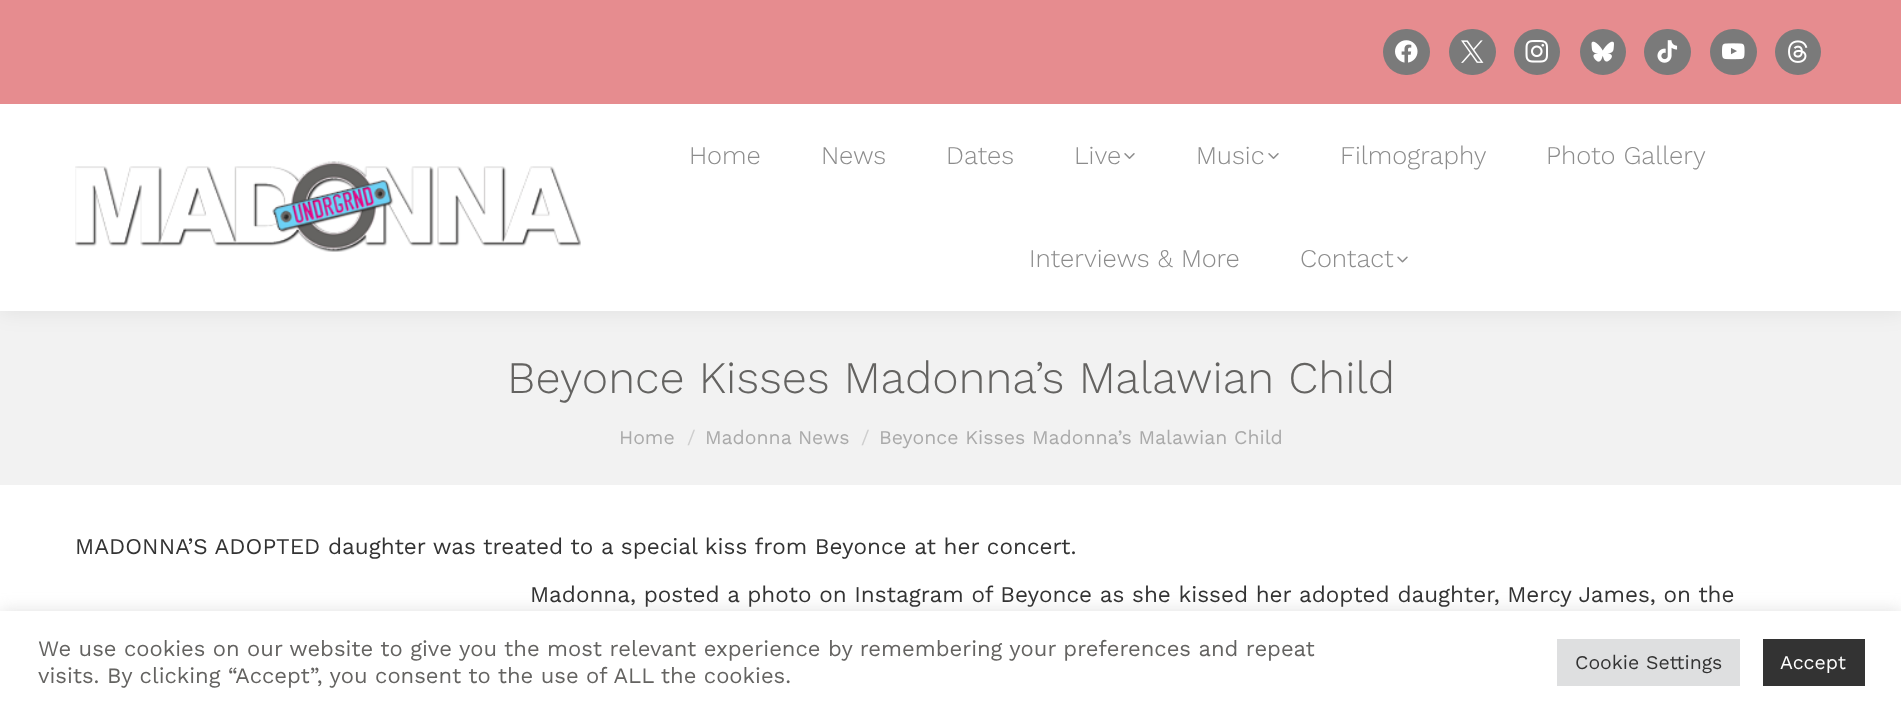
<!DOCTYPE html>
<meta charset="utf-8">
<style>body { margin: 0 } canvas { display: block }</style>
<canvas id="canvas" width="1901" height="714"></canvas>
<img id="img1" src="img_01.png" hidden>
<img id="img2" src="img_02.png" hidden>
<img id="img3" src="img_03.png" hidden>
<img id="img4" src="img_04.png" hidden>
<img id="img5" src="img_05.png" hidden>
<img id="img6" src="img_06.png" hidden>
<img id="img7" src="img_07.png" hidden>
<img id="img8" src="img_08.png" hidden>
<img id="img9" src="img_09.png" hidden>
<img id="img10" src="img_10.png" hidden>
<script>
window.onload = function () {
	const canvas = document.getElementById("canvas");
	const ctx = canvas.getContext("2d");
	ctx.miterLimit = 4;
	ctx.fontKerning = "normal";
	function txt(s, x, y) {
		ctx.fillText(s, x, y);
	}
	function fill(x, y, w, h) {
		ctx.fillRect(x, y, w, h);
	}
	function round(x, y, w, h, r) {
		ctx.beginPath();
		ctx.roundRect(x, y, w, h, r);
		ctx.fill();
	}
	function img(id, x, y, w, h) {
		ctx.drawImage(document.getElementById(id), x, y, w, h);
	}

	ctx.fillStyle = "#FFFFFF";
	fill(0, 0, 1901, 714);
	ctx.fillStyle = "#F2F2F2";
	fill(0, 311, 1901, 174);
	ctx.fillStyle = "rgba(0, 0, 0, 0.07)";
	ctx.filter = "blur(11px)";
	ctx.beginPath();
	ctx.rect(-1, -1, 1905, 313);
	ctx.fill();
	ctx.filter = "none";
	ctx.fillStyle = "#FFFFFF";
	fill(0, 104, 1901, 207);
	ctx.fillStyle = "#E68C8F";
	fill(0, 0, 1901, 104);
	ctx.fillStyle = "#7A7A7A";
	round(1383, 29, 47, 46, 23);
	img("img1", 1395, 40, 23, 23);
	round(1449, 29, 47, 46, 23);
	img("img2", 1461, 40, 23, 23);
	ctx.beginPath();
	ctx.arc(1537, 52, 23, 0, Math.PI * 2);
	ctx.fill();
	img("img3", 1525, 40, 23, 23);
	ctx.beginPath();
	ctx.arc(1603, 52, 23, 0, Math.PI * 2);
	ctx.fill();
	img("img4", 1591, 41, 23, 21);
	round(1644, 29, 47, 46, 23);
	img("img5", 1657, 40, 21, 23);
	round(1710, 29, 47, 46, 23);
	img("img6", 1722, 43, 23, 17);
	ctx.beginPath();
	ctx.arc(1798, 52, 23, 0, Math.PI * 2);
	ctx.fill();
	img("img7", 1788, 40, 20, 23);
	img("img8", 75, 161, 506, 91);
	img("img9", 1124, 153, 11, 6);
	img("img9", 1268, 153, 11, 6);
	img("img10", 1397, 256, 11, 7);
	ctx.fillStyle = "rgba(172, 171, 171, 0.3)";
	ctx.filter = "blur(7.5px)";
	ctx.beginPath();
	ctx.rect(0, 609, 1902, 104);
	ctx.fill();
	ctx.filter = "none";
	ctx.fillStyle = "#FFFFFF";
	fill(0, 611, 1901, 103);
	ctx.fillStyle = "#DEDFE0";
	fill(1557, 639, 183, 47);
	ctx.fillStyle = "#333333";
	fill(1763, 639, 102, 47);
	ctx.font = "300 25.5px Work Sans";
	ctx.fillStyle = "#8C8C8C";
	txt("Home", 689, 164);
	txt("News", 821, 164);
	txt("Dates", 946, 164);
	txt("Live", 1074, 164);
	txt("Music", 1196, 164);
	txt("Filmography", 1340, 164);
	txt("Photo Gallery", 1546, 164);
	txt("Interviews & More", 1029, 267);
	txt("Contact", 1300, 267);
	ctx.font = "300 45px Work Sans";
	ctx.fillStyle = "#646361";
	txt("Beyonce Kisses Madonna’s Malawian Child", 507, 393);
	ctx.font = "19.5px Work Sans";
	ctx.fillStyle = "#AAAAAA";
	txt("Home", 619, 444);
	ctx.fillStyle = "#CECECE";
	txt("/", 687, 444);
	ctx.fillStyle = "#AAAAAA";
	txt("Madonna News", 705, 444);
	ctx.fillStyle = "#CECECE";
	txt("/", 861, 444);
	ctx.fillStyle = "#AAAAAA";
	txt("Beyonce Kisses Madonna’s Malawian Child", 879, 444);
	ctx.font = "22.5px Work Sans";
	ctx.fillStyle = "#333333";
	txt("MADONNA’S ADOPTED daughter was treated to a special kiss from Beyonce at her concert.", 75, 554);
	txt("Madonna, posted a photo on Instagram of Beyonce as she kissed her adopted daughter, Mercy James, on the", 530, 602);
	ctx.font = "22px Work Sans";
	ctx.fillStyle = "#646361";
	txt("We use cookies on our website to give you the most relevant experience by remembering your preferences and repeat", 38, 656);
	txt("visits. By clicking “Accept”, you consent to the use of ALL the cookies.", 38, 683);
	ctx.font = "19.5px Work Sans";
	ctx.fillStyle = "#333333";
	txt("Cookie Settings", 1575, 669);
	ctx.fillStyle = "#FFFFFF";
	txt("Accept", 1780, 669);
};
</script>
